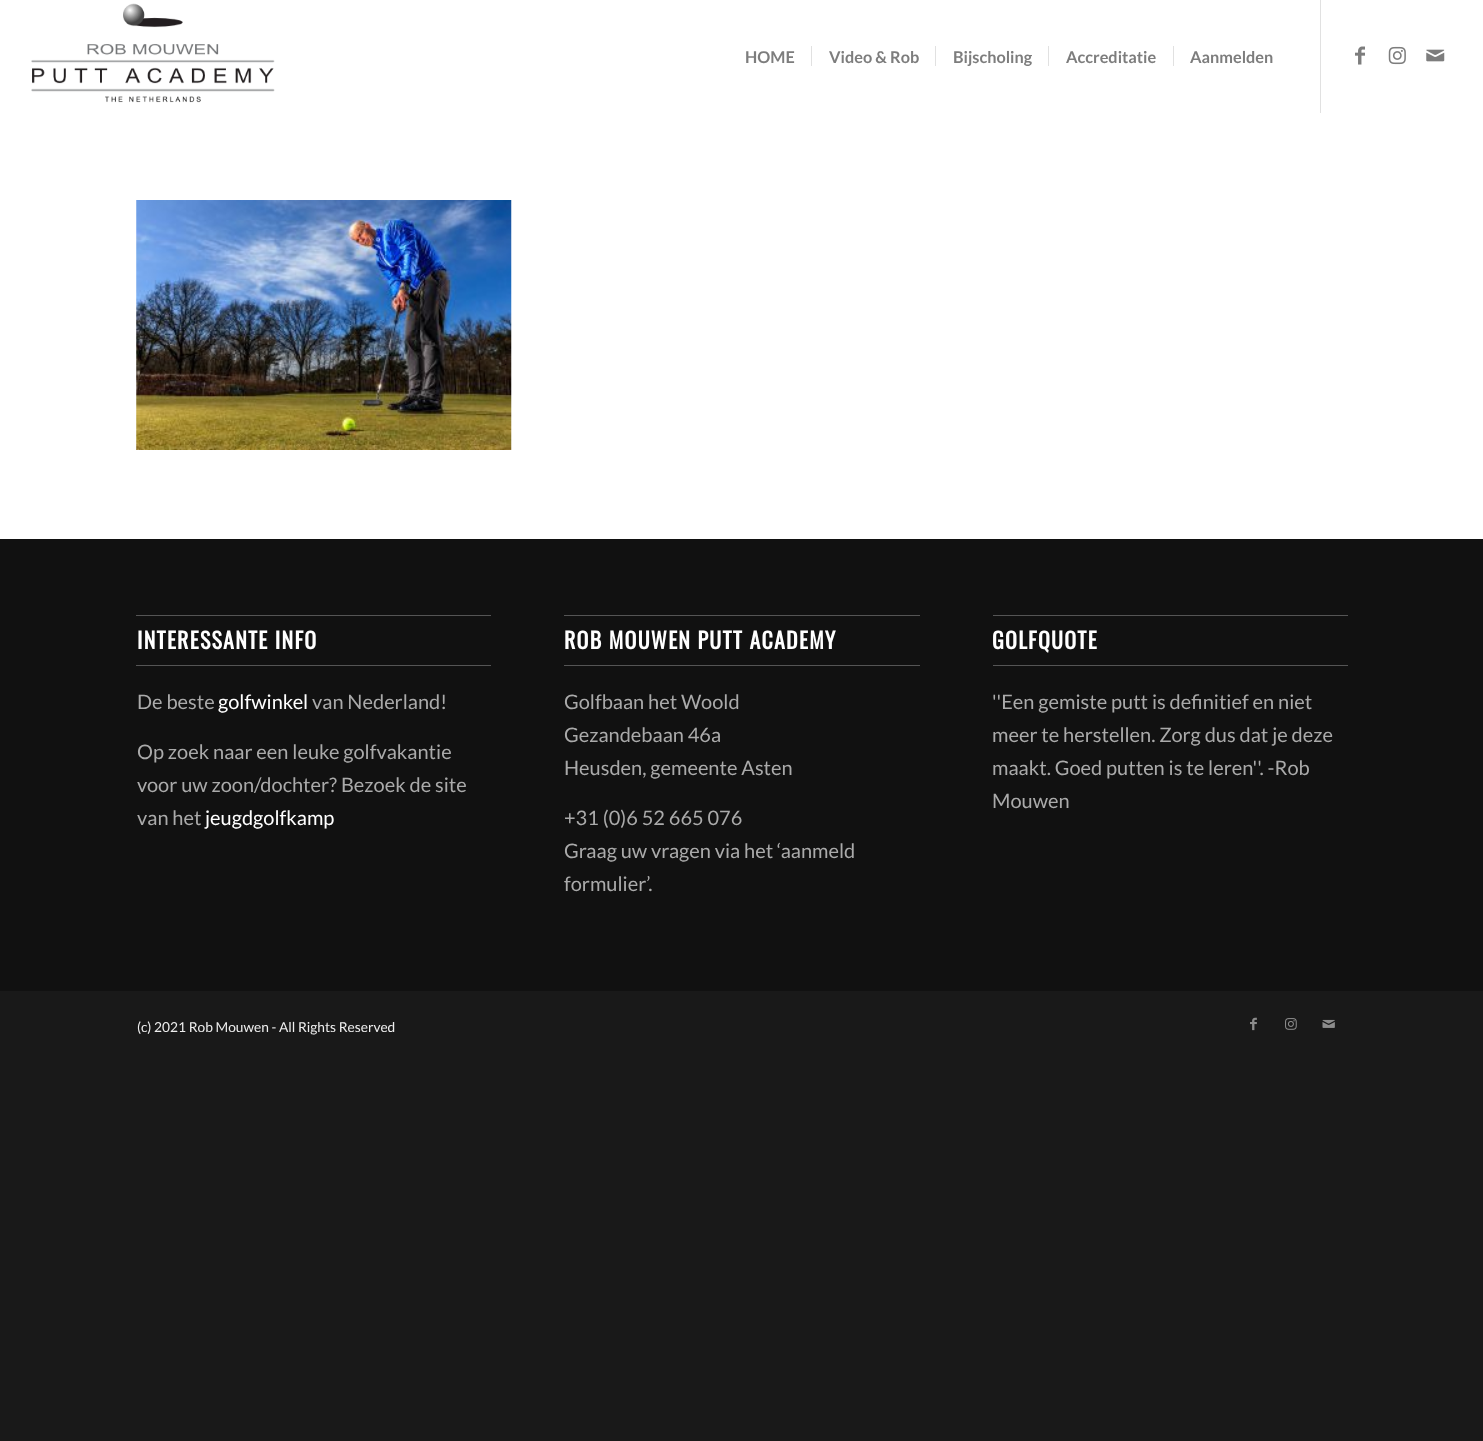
<!DOCTYPE html>
<meta charset="utf-8">
<style>body { margin: 0 } canvas { display: block }</style>
<canvas id="canvas" width="1483" height="1441"></canvas>
<img id="img1" src="img_01.png" hidden>
<img id="img2" src="img_02.png" hidden>
<img id="img3" src="img_03.png" hidden>
<img id="img4" src="img_04.png" hidden>
<img id="img5" src="img_05.png" hidden>
<img id="img6" src="img_06.png" hidden>
<img id="img7" src="img_07.png" hidden>
<img id="img8" src="img_08.png" hidden>
<script>
window.onload = function () {
	const canvas = document.getElementById("canvas");
	const ctx = canvas.getContext("2d");
	ctx.miterLimit = 4;
	ctx.fontKerning = "normal";
	function txt(s, x, y) {
		ctx.fillText(s, x, y);
	}
	function fill(x, y, w, h) {
		ctx.fillRect(x, y, w, h);
	}
	function img(id, x, y, w, h) {
		ctx.drawImage(document.getElementById(id), x, y, w, h);
	}

	ctx.fillStyle = "#191919";
	fill(0, 0, 1483, 1441);
	ctx.fillStyle = "#FFFFFF";
	fill(0, 0, 1483, 539);
	img("img1", 31, 3, 244, 100);
	ctx.fillStyle = "#E1E1E1";
	fill(1320, 0, 1, 113);
	fill(811, 46, 1, 20);
	fill(935, 46, 1, 20);
	fill(1048, 46, 1, 20);
	fill(1173, 46, 1, 20);
	img("img2", 1355, 46, 10, 19);
	img("img3", 1388, 46, 18, 19);
	img("img4", 1426, 49, 19, 13);
	img("img5", 136, 200, 376, 250);
	ctx.fillStyle = "#111111";
	fill(0, 539, 1483, 452);
	ctx.fillStyle = "#555555";
	fill(136, 615, 355, 1);
	fill(136, 665, 355, 1);
	fill(564, 615, 356, 1);
	fill(564, 665, 356, 1);
	fill(993, 615, 355, 1);
	fill(993, 665, 355, 1);
	img("img6", 1250, 1017, 7, 14);
	img("img7", 1285, 1018, 12, 12);
	img("img8", 1322, 1019, 13, 9);
	ctx.font = "bold 16.25px Lato";
	ctx.fillStyle = "#7D7D7D";
	txt("HOME", 745, 63);
	txt("Video & Rob", 829, 63);
	txt("Bijscholing", 953, 63);
	txt("Accreditatie", 1066, 63);
	txt("Aanmelden", 1190, 63);
	ctx.letterSpacing = "1.25px";
	ctx.font = "bold 22px Oswald";
	ctx.fillStyle = "#FFFFFF";
	txt("INTERESSANTE INFO", 137, 649);
	ctx.letterSpacing = "0px";
	ctx.font = "20px Lato";
	ctx.fillStyle = "#AAAAAA";
	txt("De beste", 137, 709);
	ctx.fillStyle = "#FFFFFF";
	txt("golfwinkel", 218, 709);
	ctx.fillStyle = "#AAAAAA";
	txt("van Nederland!", 312, 709);
	txt("Op zoek naar een leuke golfvakantie", 137, 759);
	txt("voor uw zoon/dochter? Bezoek de site", 137, 792);
	txt("van het", 137, 825);
	ctx.fillStyle = "#FFFFFF";
	txt("jeugdgolfkamp", 205, 825);
	ctx.letterSpacing = "1.25px";
	ctx.font = "bold 22px Oswald";
	txt("ROB MOUWEN PUTT ACADEMY", 564, 649);
	ctx.letterSpacing = "0px";
	ctx.font = "20px Lato";
	ctx.fillStyle = "#AAAAAA";
	txt("Golfbaan het Woold", 564, 709);
	txt("Gezandebaan 46a", 564, 742);
	txt("Heusden, gemeente Asten", 564, 775);
	txt("+31 (0)6 52 665 076", 564, 825);
	txt("Graag uw vragen via het ‘aanmeld", 564, 858);
	txt("formulier’.", 564, 891);
	ctx.letterSpacing = "1.25px";
	ctx.font = "bold 22px Oswald";
	ctx.fillStyle = "#FFFFFF";
	txt("GOLFQUOTE", 992, 649);
	ctx.letterSpacing = "0px";
	ctx.font = "20px Lato";
	ctx.fillStyle = "#AAAAAA";
	txt("''Een gemiste putt is definitief en niet", 992, 709);
	txt("meer te herstellen. Zorg dus dat je deze", 992, 742);
	txt("maakt. Goed putten is te leren''. -Rob", 992, 775);
	txt("Mouwen", 992, 808);
	ctx.font = "13.75px Lato";
	ctx.fillStyle = "#EEEEEE";
	txt("(c) 2021 Rob Mouwen - All Rights Reserved", 137, 1032);
};
</script>
